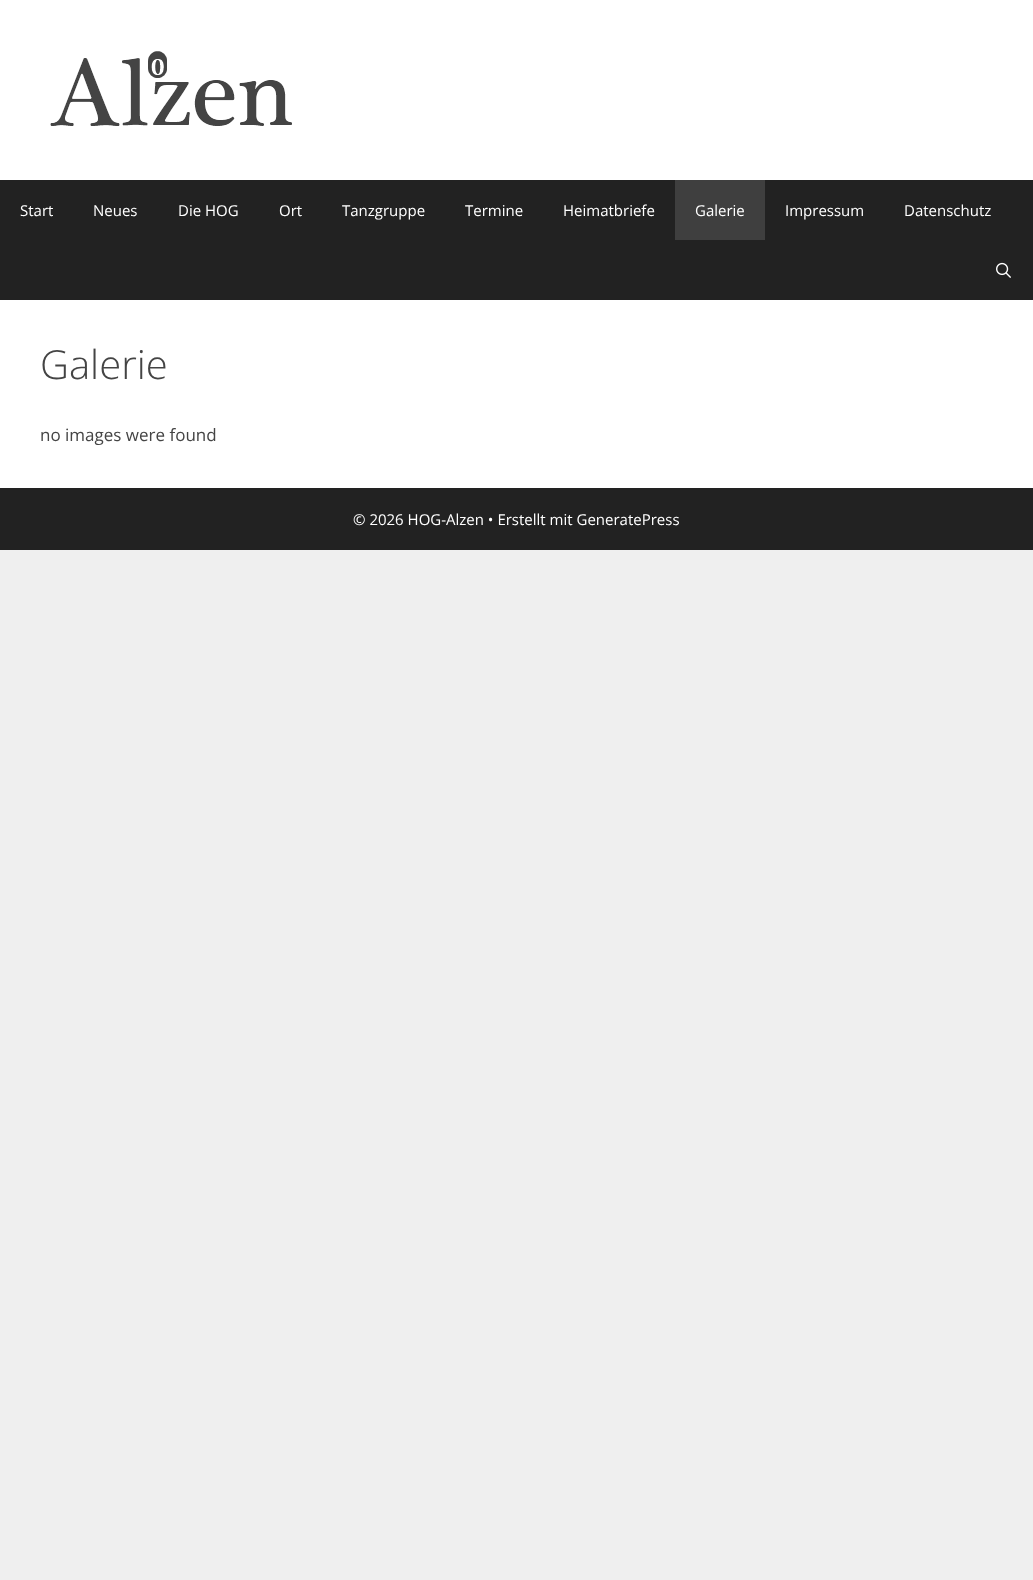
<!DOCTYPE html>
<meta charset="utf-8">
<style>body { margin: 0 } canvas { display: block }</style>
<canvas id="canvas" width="1033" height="1580"></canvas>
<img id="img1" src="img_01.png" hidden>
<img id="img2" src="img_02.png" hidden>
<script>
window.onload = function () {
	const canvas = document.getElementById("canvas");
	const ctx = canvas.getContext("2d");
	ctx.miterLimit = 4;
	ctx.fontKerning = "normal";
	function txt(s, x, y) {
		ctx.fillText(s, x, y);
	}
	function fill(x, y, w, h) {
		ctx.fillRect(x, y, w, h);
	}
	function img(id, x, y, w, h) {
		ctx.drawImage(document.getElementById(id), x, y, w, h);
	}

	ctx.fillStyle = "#EFEFEF";
	fill(0, 0, 1033, 1580);
	ctx.fillStyle = "#FFFFFF";
	fill(0, 0, 1033, 180);
	img("img1", 50, 51, 242, 75);
	ctx.fillStyle = "#222222";
	fill(0, 180, 1033, 120);
	ctx.fillStyle = "#3F3F3F";
	fill(675, 180, 90, 60);
	img("img2", 996, 262, 15, 16);
	ctx.fillStyle = "#FFFFFF";
	fill(0, 300, 1033, 188);
	ctx.fillStyle = "#222222";
	fill(0, 488, 1033, 62);
	ctx.font = "15px Open Sans";
	ctx.fillStyle = "#FFFFFF";
	txt("Start", 20, 216);
	txt("Neues", 93, 216);
	txt("Die HOG", 178, 216);
	txt("Ort", 279, 216);
	txt("Tanzgruppe", 342, 216);
	txt("Termine", 465, 216);
	txt("Heimatbriefe", 563, 216);
	txt("Galerie", 695, 216);
	txt("Impressum", 785, 216);
	txt("Datenschutz", 904, 216);
	ctx.font = "300 40px Open Sans";
	ctx.fillStyle = "#444444";
	txt("Galerie", 40, 379);
	ctx.font = "17px Open Sans";
	txt("no images were found", 40, 441);
	ctx.font = "15px Open Sans";
	ctx.fillStyle = "#FFFFFF";
	txt("© 2026 HOG-Alzen • Erstellt mit GeneratePress", 353, 525);
};
</script>
